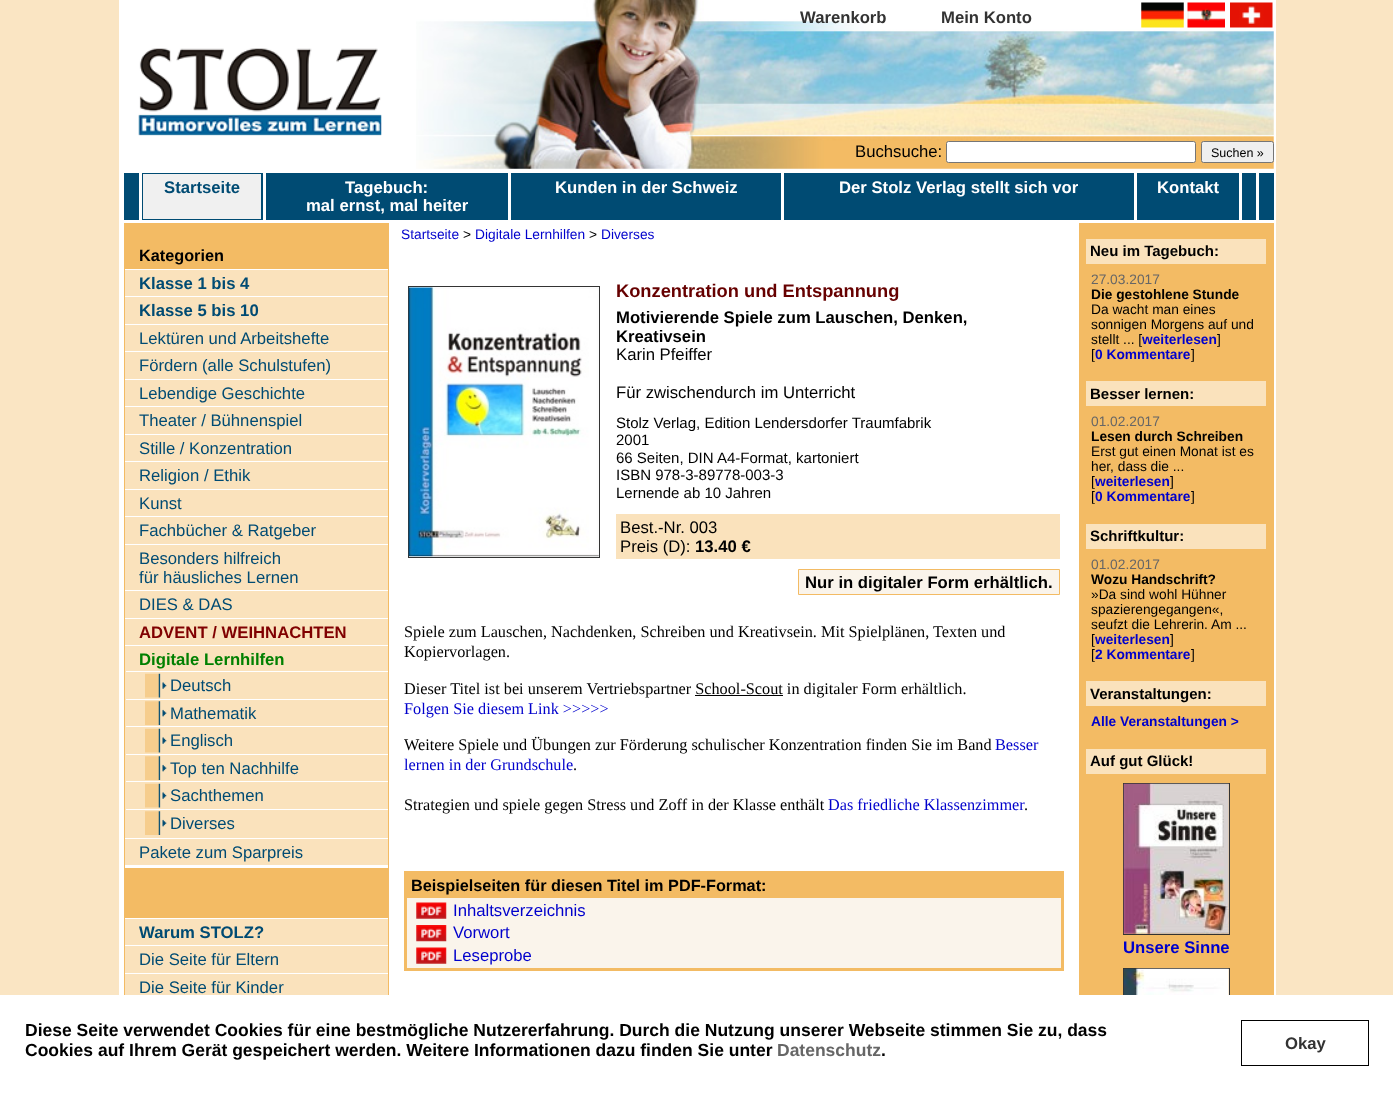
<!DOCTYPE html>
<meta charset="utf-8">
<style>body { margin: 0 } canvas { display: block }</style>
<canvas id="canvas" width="1393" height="1103"></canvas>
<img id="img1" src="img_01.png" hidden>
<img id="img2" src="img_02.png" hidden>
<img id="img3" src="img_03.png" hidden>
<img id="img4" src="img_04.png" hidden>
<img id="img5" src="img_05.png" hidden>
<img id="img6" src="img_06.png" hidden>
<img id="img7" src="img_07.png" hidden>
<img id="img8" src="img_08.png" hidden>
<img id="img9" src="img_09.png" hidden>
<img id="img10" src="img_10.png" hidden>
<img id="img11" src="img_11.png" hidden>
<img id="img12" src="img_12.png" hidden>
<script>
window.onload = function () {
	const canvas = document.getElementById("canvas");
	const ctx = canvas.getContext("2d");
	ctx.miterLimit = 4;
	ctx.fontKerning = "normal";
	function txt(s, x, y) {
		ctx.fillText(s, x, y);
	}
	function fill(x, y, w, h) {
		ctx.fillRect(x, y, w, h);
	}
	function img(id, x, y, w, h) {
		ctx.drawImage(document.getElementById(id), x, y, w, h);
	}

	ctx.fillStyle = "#FAE5C3";
	fill(0, 0, 1393, 1103);
	ctx.fillStyle = "#FFFFFF";
	fill(119, 0, 1157, 995);
	img("img1", 416, 0, 858, 169);
	img("img2", 1141, 2, 43, 26);
	img("img3", 1187, 2, 38, 26);
	img("img4", 1230, 2, 43, 26);
	img("img5", 138, 48, 244, 88);
	ctx.beginPath();
	ctx.roundRect(946.5, 141.5, 249, 21, 2);
	ctx.fill();
	ctx.strokeStyle = "#767676";
	ctx.stroke();
	ctx.fillStyle = "#EFEFEF";
	ctx.beginPath();
	ctx.roundRect(1201.5, 141.5, 72, 21, 2);
	ctx.fill();
	ctx.stroke();
	ctx.fillStyle = "#004B73";
	fill(124, 173, 15, 47);
	fill(142, 173, 121, 47);
	ctx.fillStyle = "#F0F0F0";
	fill(143, 174, 118, 45);
	ctx.fillStyle = "#004B73";
	fill(266, 173, 242, 47);
	fill(511, 173, 270, 47);
	fill(784, 173, 350, 47);
	fill(1137, 173, 102, 47);
	fill(1242, 173, 14, 47);
	fill(1259, 173, 15, 47);
	ctx.fillStyle = "#F3BB64";
	fill(124, 223, 265, 772);
	ctx.fillStyle = "#FAE2BC";
	fill(125, 270, 263, 595);
	ctx.fillStyle = "#FFFFFF";
	fill(125, 865, 263, 3);
	fill(125, 269, 263, 1);
	fill(125, 296, 263, 1);
	fill(125, 324, 263, 1);
	fill(125, 351, 263, 1);
	fill(125, 379, 263, 1);
	fill(125, 406, 263, 1);
	fill(125, 434, 263, 1);
	fill(125, 461, 263, 1);
	fill(125, 489, 263, 1);
	fill(125, 516, 263, 1);
	fill(125, 544, 263, 1);
	fill(125, 590, 263, 1);
	fill(125, 618, 263, 1);
	fill(125, 645, 263, 1);
	fill(126, 671, 262, 1);
	img("img6", 145, 673, 22, 25);
	fill(126, 699, 262, 1);
	img("img7", 145, 701, 22, 24);
	fill(126, 726, 262, 1);
	img("img6", 145, 728, 22, 25);
	fill(126, 754, 262, 1);
	img("img7", 145, 756, 22, 24);
	fill(126, 781, 262, 1);
	img("img6", 145, 783, 22, 25);
	fill(126, 809, 262, 1);
	img("img7", 145, 811, 22, 24);
	fill(125, 838, 263, 1);
	ctx.fillStyle = "#FAE2BC";
	fill(125, 919, 263, 76);
	ctx.fillStyle = "#FFFFFF";
	fill(125, 918, 263, 1);
	fill(125, 945, 263, 1);
	fill(125, 973, 263, 1);
	ctx.strokeStyle = "#333333";
	ctx.strokeRect(408.5, 286.5, 191, 271);
	img("img8", 408, 287, 191, 270);
	ctx.fillStyle = "#FAE2BC";
	fill(616, 514, 444, 45);
	ctx.fillStyle = "#FAF4EB";
	ctx.beginPath();
	ctx.rect(798.5, 569.5, 261, 25);
	ctx.fill();
	ctx.strokeStyle = "#F3BB64";
	ctx.stroke();
	ctx.fillStyle = "#000000";
	fill(695, 695, 88, 1);
	ctx.fillStyle = "#FAF4EB";
	fill(407, 898, 654, 70);
	ctx.lineWidth = 3;
	ctx.strokeRect(405.5, 872.5, 657, 97);
	ctx.fillStyle = "#F3BB64";
	fill(407, 874, 654, 24);
	img("img9", 416, 902, 31, 17);
	img("img10", 416, 925, 31, 17);
	img("img9", 416, 947, 31, 17);
	fill(1079, 223, 195, 772);
	ctx.fillStyle = "#FAE2BC";
	fill(1086, 239, 180, 25);
	fill(1086, 381, 180, 25);
	fill(1086, 524, 180, 25);
	fill(1086, 681, 180, 25);
	fill(1086, 749, 180, 25);
	ctx.strokeStyle = "#333333";
	ctx.lineWidth = 1;
	ctx.strokeRect(1123.5, 783.5, 106, 151);
	img("img11", 1123, 783, 106, 151);
	ctx.strokeRect(1123.5, 968.5, 106, 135);
	img("img12", 1123, 968, 106, 27);
	ctx.fillStyle = "#FFFFFF";
	fill(0, 995, 1393, 108);
	ctx.strokeStyle = "#000000";
	ctx.strokeRect(1241.5, 1020.5, 127, 45);
	ctx.font = "bold 16.7px Liberation Sans";
	ctx.fillStyle = "#333333";
	txt("Warenkorb", 800, 23);
	txt("Mein Konto", 941, 23);
	ctx.font = "16.7px Liberation Sans";
	ctx.fillStyle = "#000000";
	txt("Buchsuche:", 855, 157);
	ctx.font = "12.5px Liberation Sans";
	txt("Suchen »", 1211, 157);
	ctx.font = "bold 16.7px Liberation Sans";
	ctx.fillStyle = "#004B73";
	txt("Startseite", 164, 193);
	ctx.fillStyle = "#FFFFFF";
	txt("Tagebuch:", 345, 193);
	txt("mal ernst, mal heiter", 306, 211);
	txt("Kunden in der Schweiz", 555, 193);
	txt("Der Stolz Verlag stellt sich vor", 839, 193);
	txt("Kontakt", 1157, 193);
	ctx.font = "bold 16.25px Liberation Sans";
	ctx.fillStyle = "#000000";
	txt("Kategorien", 139, 261);
	ctx.font = "bold 16.7px Liberation Sans";
	ctx.fillStyle = "#004B73";
	txt("Klasse 1 bis 4", 139, 289);
	txt("Klasse 5 bis 10", 139, 316);
	ctx.font = "16.7px Liberation Sans";
	txt("Lektüren und Arbeitshefte", 139, 344);
	txt("Fördern (alle Schulstufen)", 139, 371);
	txt("Lebendige Geschichte", 139, 399);
	txt("Theater / Bühnenspiel", 139, 426);
	txt("Stille / Konzentration", 139, 454);
	txt("Religion / Ethik", 139, 481);
	txt("Kunst", 139, 509);
	txt("Fachbücher & Ratgeber", 139, 536);
	txt("Besonders hilfreich", 139, 564);
	txt("für häusliches Lernen", 139, 583);
	txt("DIES & DAS", 139, 610);
	ctx.font = "bold 16.7px Liberation Sans";
	ctx.fillStyle = "#800000";
	txt("ADVENT / WEIHNACHTEN", 139, 638);
	ctx.fillStyle = "#008000";
	txt("Digitale Lernhilfen", 139, 665);
	ctx.font = "16.7px Liberation Sans";
	ctx.fillStyle = "#004B73";
	txt("Deutsch", 170, 691);
	txt("Mathematik", 170, 719);
	txt("Englisch", 170, 746);
	txt("Top ten Nachhilfe", 170, 774);
	txt("Sachthemen", 170, 801);
	txt("Diverses", 170, 829);
	txt("Pakete zum Sparpreis", 139, 858);
	ctx.font = "bold 16.7px Liberation Sans";
	txt("Warum STOLZ?", 139, 938);
	ctx.font = "16.7px Liberation Sans";
	txt("Die Seite für Eltern", 139, 965);
	txt("Die Seite für Kinder", 139, 993);
	ctx.font = "13.75px Liberation Sans";
	ctx.fillStyle = "#0000CC";
	txt("Startseite", 401, 239);
	ctx.fillStyle = "#000000";
	txt(">", 463, 239);
	ctx.fillStyle = "#0000CC";
	txt("Digitale Lernhilfen", 475, 239);
	ctx.fillStyle = "#000000";
	txt(">", 589, 239);
	ctx.fillStyle = "#0000CC";
	txt("Diverses", 601, 239);
	ctx.font = "bold 18.3px Liberation Sans";
	ctx.fillStyle = "#660000";
	txt("Konzentration und Entspannung", 616, 297);
	ctx.font = "bold 16.7px Liberation Sans";
	ctx.fillStyle = "#000000";
	txt("Motivierende Spiele zum Lauschen, Denken,", 616, 323);
	txt("Kreativsein", 616, 342);
	ctx.font = "16.7px Liberation Sans";
	txt("Karin Pfeiffer", 616, 360);
	txt("Für zwischendurch im Unterricht", 616, 398);
	ctx.font = "15px Liberation Sans";
	txt("Stolz Verlag, Edition Lendersdorfer Traumfabrik", 616, 428);
	txt("2001", 616, 445);
	txt("66 Seiten, DIN A4-Format, kartoniert", 616, 463);
	txt("ISBN 978-3-89778-003-3", 616, 480);
	txt("Lernende ab 10 Jahren", 616, 498);
	ctx.font = "16.7px Liberation Sans";
	txt("Best.-Nr. 003", 620, 533);
	txt("Preis (D):", 620, 552);
	ctx.font = "bold 16.7px Liberation Sans";
	txt("13.40 €", 695, 552);
	txt("Nur in digitaler Form erhältlich.", 805, 588);
	ctx.font = "16.25px Liberation Serif";
	txt("Spiele zum Lauschen, Nachdenken, Schreiben und Kreativsein. Mit Spielplänen, Texten und", 404, 637);
	txt("Kopiervorlagen.", 404, 657);
	txt("Dieser Titel ist bei unserem Vertriebspartner School-Scout in digitaler Form erhältlich.", 404, 694);
	ctx.fillStyle = "#0000CC";
	txt("Folgen Sie diesem Link >>>>>", 404, 714);
	ctx.fillStyle = "#000000";
	txt("Weitere Spiele und Übungen zur Förderung schulischer Konzentration finden Sie im Band", 404, 750);
	ctx.fillStyle = "#0000CC";
	txt("Besser", 995, 750);
	txt("lernen in der Grundschule", 404, 770);
	ctx.fillStyle = "#000000";
	txt(".", 573, 770);
	txt("Strategien und spiele gegen Stress und Zoff in der Klasse enthält", 404, 810);
	ctx.fillStyle = "#0000CC";
	txt("Das friedliche Klassenzimmer", 828, 810);
	ctx.fillStyle = "#000000";
	txt(".", 1024, 810);
	ctx.font = "bold 16.25px Liberation Sans";
	txt("Beispielseiten für diesen Titel im PDF-Format:", 411, 891);
	ctx.font = "16.7px Liberation Sans";
	ctx.fillStyle = "#0000CC";
	txt("Inhaltsverzeichnis", 453, 916);
	txt("Vorwort", 453, 938);
	txt("Leseprobe", 453, 961);
	ctx.font = "bold 15px Liberation Sans";
	ctx.fillStyle = "#000000";
	txt("Neu im Tagebuch:", 1090, 256);
	ctx.font = "13.75px Liberation Sans";
	ctx.fillStyle = "#666666";
	txt("27.03.2017", 1091, 284);
	ctx.font = "bold 13.75px Liberation Sans";
	ctx.fillStyle = "#000000";
	txt("Die gestohlene Stunde", 1091, 299);
	ctx.font = "13.75px Liberation Sans";
	txt("Da wacht man eines", 1091, 314);
	txt("sonnigen Morgens auf und", 1091, 329);
	txt("stellt ... [", 1091, 344);
	ctx.font = "bold 13.75px Liberation Sans";
	ctx.fillStyle = "#0000CC";
	txt("weiterlesen", 1142, 344);
	ctx.font = "13.75px Liberation Sans";
	ctx.fillStyle = "#000000";
	txt("]", 1217, 344);
	txt("[", 1091, 359);
	ctx.font = "bold 13.75px Liberation Sans";
	ctx.fillStyle = "#0000CC";
	txt("0 Kommentare", 1095, 359);
	ctx.font = "13.75px Liberation Sans";
	ctx.fillStyle = "#000000";
	txt("]", 1191, 359);
	ctx.font = "bold 15px Liberation Sans";
	txt("Besser lernen:", 1090, 399);
	ctx.font = "13.75px Liberation Sans";
	ctx.fillStyle = "#666666";
	txt("01.02.2017", 1091, 426);
	ctx.font = "bold 13.75px Liberation Sans";
	ctx.fillStyle = "#000000";
	txt("Lesen durch Schreiben", 1091, 441);
	ctx.font = "13.75px Liberation Sans";
	txt("Erst gut einen Monat ist es", 1091, 456);
	txt("her, dass die ...", 1091, 471);
	txt("[", 1091, 486);
	ctx.font = "bold 13.75px Liberation Sans";
	ctx.fillStyle = "#0000CC";
	txt("weiterlesen", 1095, 486);
	ctx.font = "13.75px Liberation Sans";
	ctx.fillStyle = "#000000";
	txt("]", 1170, 486);
	txt("[", 1091, 501);
	ctx.font = "bold 13.75px Liberation Sans";
	ctx.fillStyle = "#0000CC";
	txt("0 Kommentare", 1095, 501);
	ctx.font = "13.75px Liberation Sans";
	ctx.fillStyle = "#000000";
	txt("]", 1191, 501);
	ctx.font = "bold 15px Liberation Sans";
	txt("Schriftkultur:", 1090, 541);
	ctx.font = "13.75px Liberation Sans";
	ctx.fillStyle = "#666666";
	txt("01.02.2017", 1091, 569);
	ctx.font = "bold 13.75px Liberation Sans";
	ctx.fillStyle = "#000000";
	txt("Wozu Handschrift?", 1091, 584);
	ctx.font = "13.75px Liberation Sans";
	txt("»Da sind wohl Hühner", 1091, 599);
	txt("spazierengegangen«,", 1091, 614);
	txt("seufzt die Lehrerin. Am ...", 1091, 629);
	txt("[", 1091, 644);
	ctx.font = "bold 13.75px Liberation Sans";
	ctx.fillStyle = "#0000CC";
	txt("weiterlesen", 1095, 644);
	ctx.font = "13.75px Liberation Sans";
	ctx.fillStyle = "#000000";
	txt("]", 1170, 644);
	txt("[", 1091, 659);
	ctx.font = "bold 13.75px Liberation Sans";
	ctx.fillStyle = "#0000CC";
	txt("2 Kommentare", 1095, 659);
	ctx.font = "13.75px Liberation Sans";
	ctx.fillStyle = "#000000";
	txt("]", 1191, 659);
	ctx.font = "bold 15px Liberation Sans";
	txt("Veranstaltungen:", 1090, 699);
	ctx.font = "bold 13.75px Liberation Sans";
	ctx.fillStyle = "#0000CC";
	txt("Alle Veranstaltungen >", 1091, 726);
	ctx.font = "bold 15px Liberation Sans";
	ctx.fillStyle = "#000000";
	txt("Auf gut Glück!", 1090, 766);
	ctx.font = "bold 16.7px Liberation Sans";
	ctx.fillStyle = "#0000CC";
	txt("Unsere Sinne", 1123, 953);
	ctx.font = "bold 17.5px Liberation Sans";
	ctx.fillStyle = "#000000";
	txt("Diese Seite verwendet Cookies für eine bestmögliche Nutzererfahrung. Durch die Nutzung unserer Webseite stimmen Sie zu, dass", 25, 1036);
	txt("Cookies auf Ihrem Gerät gespeichert werden. Weitere Informationen dazu finden Sie unter", 25, 1056);
	ctx.fillStyle = "#666666";
	txt("Datenschutz", 777, 1056);
	ctx.fillStyle = "#000000";
	txt(".", 881, 1056);
	ctx.font = "bold 16.7px Liberation Sans";
	ctx.fillStyle = "#333333";
	txt("Okay", 1285, 1049);
};
</script>
